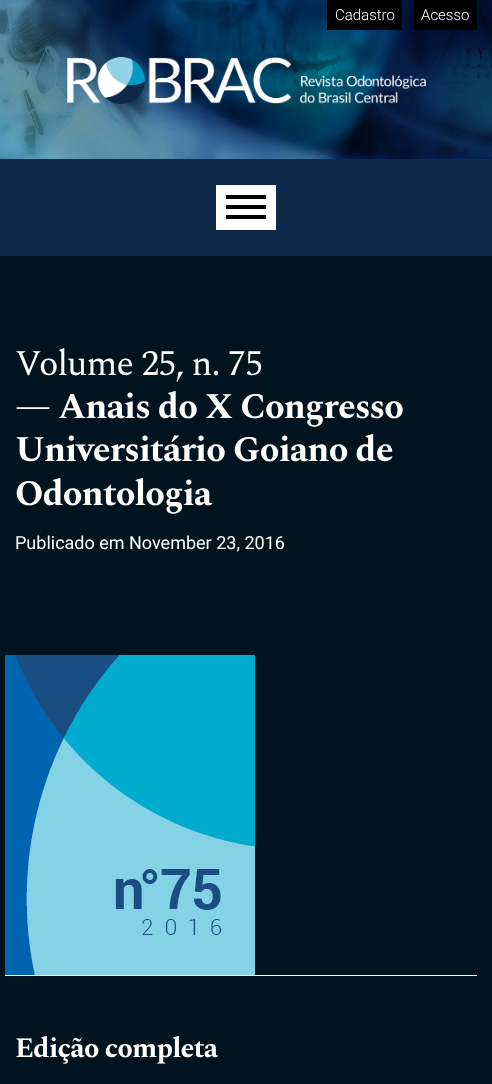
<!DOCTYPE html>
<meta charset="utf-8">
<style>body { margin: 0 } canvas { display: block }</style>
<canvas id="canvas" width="492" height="1084"></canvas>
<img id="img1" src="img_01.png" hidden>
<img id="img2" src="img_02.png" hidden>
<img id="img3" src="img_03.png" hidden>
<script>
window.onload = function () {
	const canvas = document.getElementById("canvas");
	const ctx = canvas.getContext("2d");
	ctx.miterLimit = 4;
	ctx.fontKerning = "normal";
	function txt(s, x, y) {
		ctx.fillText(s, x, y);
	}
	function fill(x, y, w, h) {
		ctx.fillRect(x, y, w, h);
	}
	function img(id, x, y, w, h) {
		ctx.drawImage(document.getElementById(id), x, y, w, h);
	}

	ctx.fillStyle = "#00131E";
	fill(0, 0, 492, 1084);
	img("img1", 0, 0, 492, 159);
	ctx.fillStyle = "#000000";
	fill(327, 0, 75, 30);
	fill(414, 0, 63, 30);
	img("img2", 67, 57, 359, 47);
	ctx.fillStyle = "#0F294B";
	fill(0, 159, 492, 97);
	ctx.fillStyle = "#FFFFFF";
	fill(216, 185, 60, 45);
	ctx.fillStyle = "#000000";
	fill(226, 195, 40, 4);
	fill(226, 205, 40, 4);
	fill(226, 215, 40, 4);
	img("img3", 5, 655, 250, 320);
	ctx.fillStyle = "#FFFFFF";
	fill(5, 975, 472, 1);
	ctx.font = "300 15px Roboto";
	txt("Cadastro", 335, 20);
	txt("Acesso", 421, 20);
	ctx.letterSpacing = "-0.9px";
	ctx.font = "36px Spectral";
	txt("Volume 25, n. 75", 15, 375);
	ctx.font = "bold 36px Spectral";
	txt("— Anais do X Congresso", 15, 418);
	txt("Universitário Goiano de", 15, 461);
	txt("Odontologia", 15, 505);
	ctx.letterSpacing = "0px";
	ctx.font = "18px Roboto";
	txt("Publicado em November 23, 2016", 15, 549);
	ctx.letterSpacing = "-0.75px";
	ctx.font = "bold 28px Spectral";
	txt("Edição completa", 15, 1057);
};
</script>
